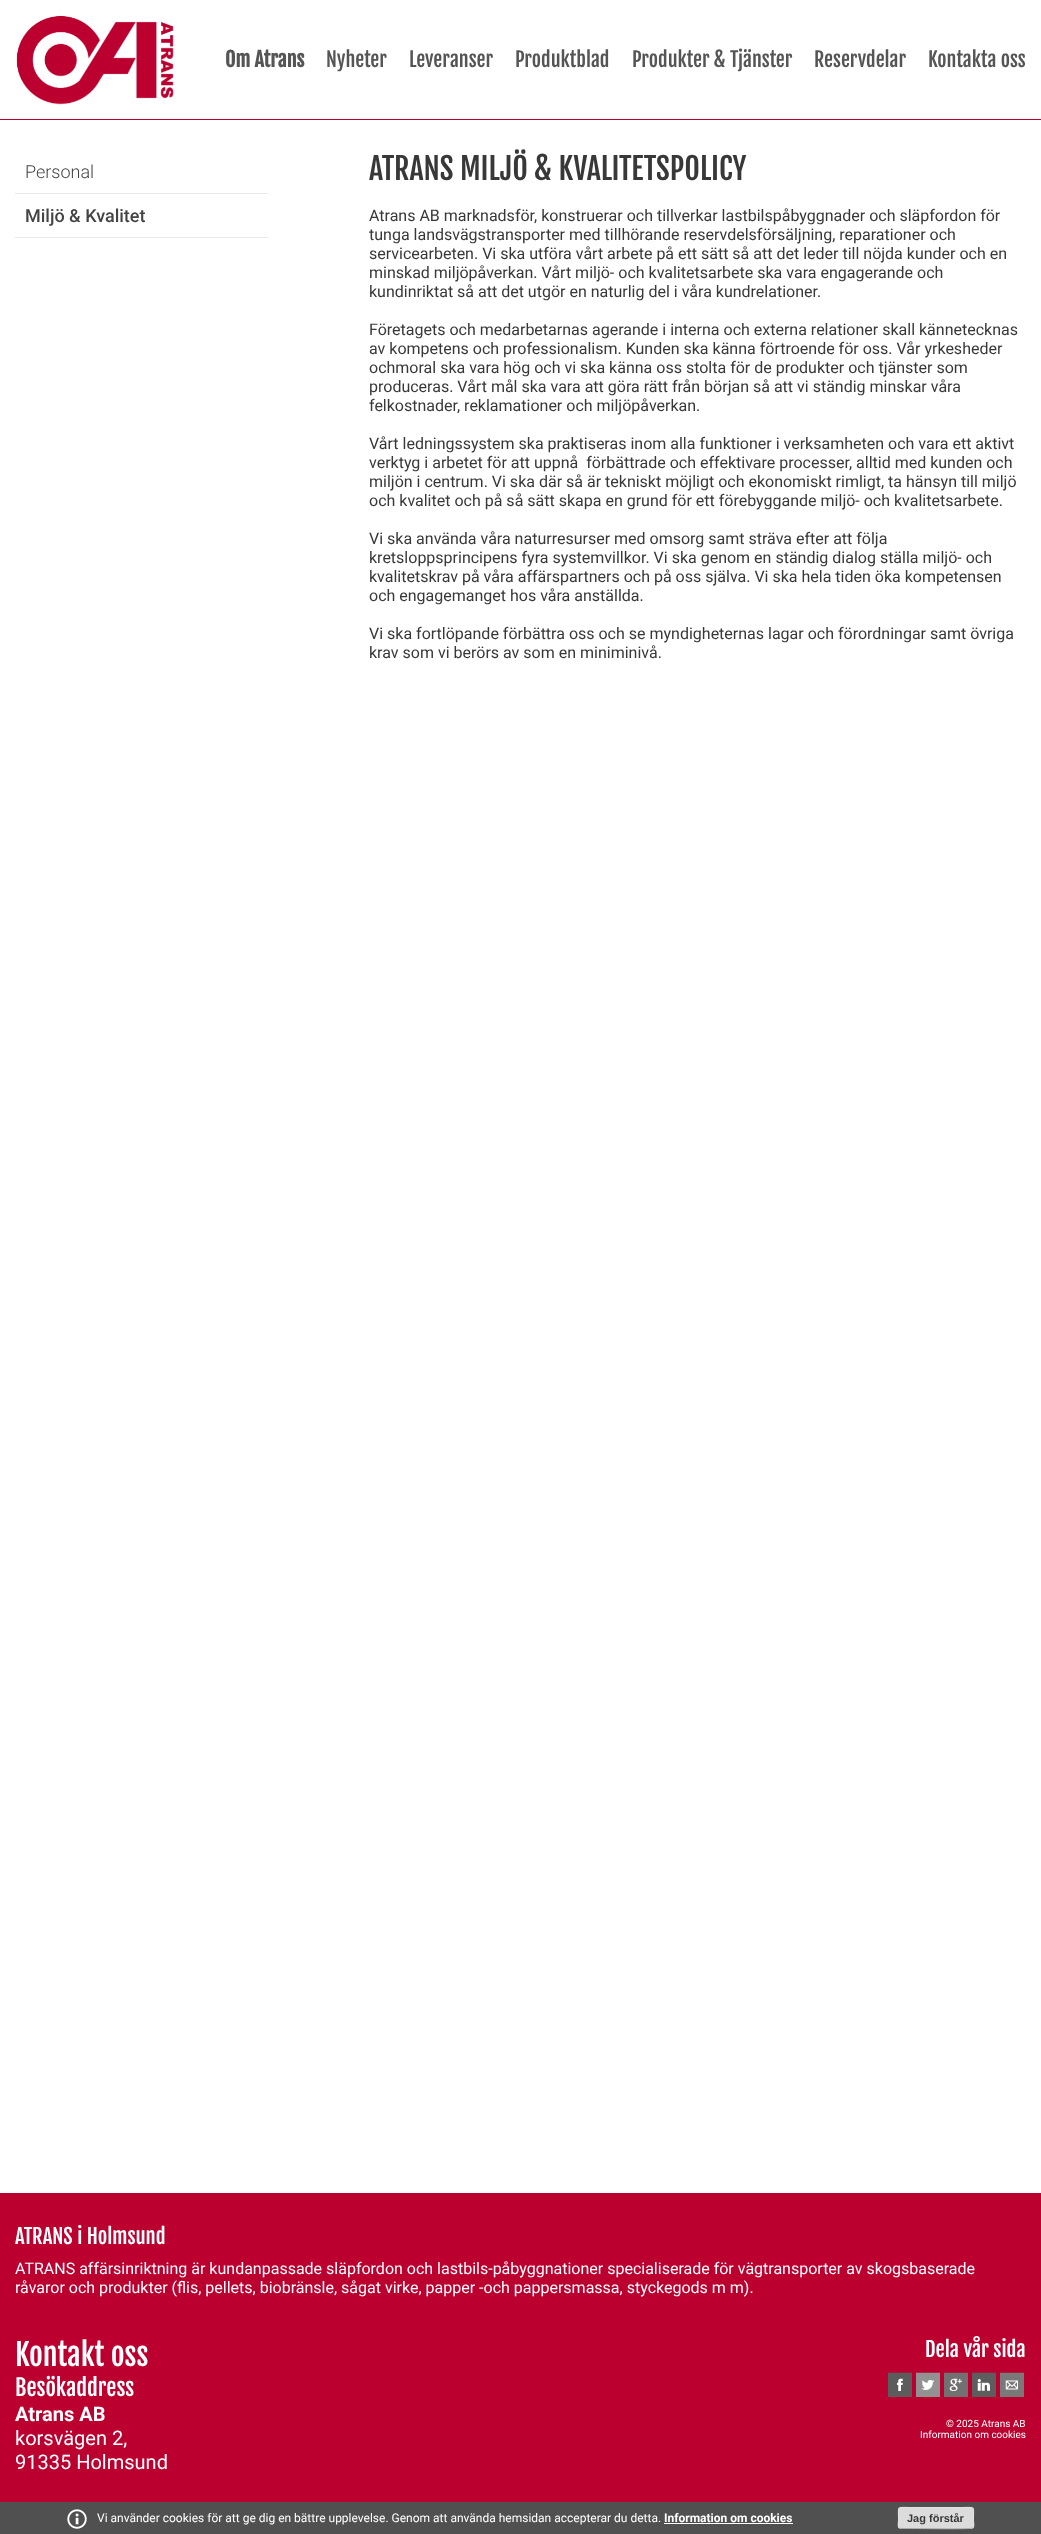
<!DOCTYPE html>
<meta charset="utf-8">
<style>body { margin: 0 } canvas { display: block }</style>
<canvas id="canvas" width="1041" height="2534"></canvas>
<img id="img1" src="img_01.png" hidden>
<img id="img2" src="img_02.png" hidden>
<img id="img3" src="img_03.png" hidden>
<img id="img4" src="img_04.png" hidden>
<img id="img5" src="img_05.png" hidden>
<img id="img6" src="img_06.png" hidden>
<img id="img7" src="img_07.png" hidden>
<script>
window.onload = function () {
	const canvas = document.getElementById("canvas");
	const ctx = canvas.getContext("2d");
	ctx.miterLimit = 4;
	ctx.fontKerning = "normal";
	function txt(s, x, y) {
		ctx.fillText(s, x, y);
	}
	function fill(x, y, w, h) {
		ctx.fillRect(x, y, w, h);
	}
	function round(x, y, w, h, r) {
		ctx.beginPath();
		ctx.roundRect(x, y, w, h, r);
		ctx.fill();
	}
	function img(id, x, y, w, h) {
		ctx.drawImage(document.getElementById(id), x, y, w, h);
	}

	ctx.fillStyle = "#FFFFFF";
	fill(0, 0, 1041, 2534);
	ctx.fillStyle = "#BA002F";
	fill(0, 119, 1041, 1);
	img("img1", 16, 15, 158, 90);
	ctx.fillStyle = "#E8E8E8";
	fill(15, 193, 253, 1);
	fill(15, 237, 253, 1);
	ctx.fillStyle = "#BB0030";
	fill(0, 2193, 1041, 309);
	img("img2", 888, 2372, 24, 25);
	img("img3", 916, 2372, 24, 25);
	img("img4", 944, 2372, 24, 25);
	img("img5", 972, 2372, 24, 25);
	img("img6", 1000, 2372, 24, 25);
	ctx.fillStyle = "#505050";
	fill(0, 2502, 1041, 32);
	img("img7", 67, 2509, 20, 20);
	ctx.fillStyle = "#FFFFFF";
	fill(664, 2523, 129, 1);
	ctx.fillStyle = "#DCDCDC";
	round(898, 2507, 76, 22, 3);
	ctx.beginPath();
	ctx.moveTo(973, 2528);
	ctx.lineTo(972.5, 2528);
	ctx.bezierCurveTo(970.5, 2529.5, 919.5, 2528.5, 912.5, 2528.5);
	ctx.lineTo(901, 2528.5);
	ctx.lineTo(899, 2528);
	ctx.strokeStyle = "#AAAAAA";
	ctx.stroke();
	ctx.beginPath();
	ctx.moveTo(899, 2528);
	ctx.bezierCurveTo(897.5, 2526, 898.5, 2522.5, 898.5, 2520.5);
	ctx.bezierCurveTo(898.5, 2505, 896, 2507.5, 912.5, 2507.5);
	ctx.lineTo(959.5, 2507.5);
	ctx.bezierCurveTo(976, 2507.5, 973.5, 2505, 973.5, 2520.5);
	ctx.bezierCurveTo(973.5, 2522.5, 974.5, 2526, 973, 2528);
	ctx.strokeStyle = "#E3E3E3";
	ctx.stroke();
	ctx.font = "bold 20px Fjalla One";
	ctx.fillStyle = "#555555";
	txt("Om Atrans", 225, 67);
	ctx.font = "20px Fjalla One";
	txt("Nyheter", 326, 67);
	txt("Leveranser", 409, 67);
	txt("Produktblad", 515, 67);
	txt("Produkter & Tjänster", 632, 67);
	txt("Reservdelar", 814, 67);
	txt("Kontakta oss", 928, 67);
	ctx.font = "300 18px Roboto";
	ctx.fillStyle = "#444444";
	txt("Personal", 25, 178);
	ctx.font = "500 18px Roboto";
	txt("Miljö & Kvalitet", 25, 222);
	ctx.font = "30px Fjalla One";
	ctx.fillStyle = "#383838";
	txt("ATRANS MILJÖ & KVALITETSPOLICY", 369, 180);
	ctx.font = "16px Roboto";
	txt("Atrans AB marknadsför, konstruerar och tillverkar lastbilspåbyggnader och släpfordon för", 369, 221);
	txt("tunga landsvägstransporter med tillhörande reservdelsförsäljning, reparationer och", 369, 240);
	txt("servicearbeten. Vi ska utföra vårt arbete på ett sätt så att det leder till nöjda kunder och en", 369, 259);
	txt("minskad miljöpåverkan. Vårt miljö- och kvalitetsarbete ska vara engagerande och", 369, 278);
	txt("kundinriktat så att det utgör en naturlig del i våra kundrelationer.", 369, 297);
	txt("Företagets och medarbetarnas agerande i interna och externa relationer skall kännetecknas", 369, 335);
	txt("av kompetens och professionalism. Kunden ska känna förtroende för oss. Vår yrkesheder", 369, 354);
	txt("ochmoral ska vara hög och vi ska känna oss stolta för de produkter och tjänster som", 369, 373);
	txt("produceras. Vårt mål ska vara att göra rätt från början så att vi ständig minskar våra", 369, 392);
	txt("felkostnader, reklamationer och miljöpåverkan.", 369, 411);
	txt("Vårt ledningssystem ska praktiseras inom alla funktioner i verksamheten och vara ett aktivt", 369, 449);
	txt("verktyg i arbetet för att uppnå  förbättrade och effektivare processer, alltid med kunden och", 369, 468);
	txt("miljön i centrum. Vi ska där så är tekniskt möjligt och ekonomiskt rimligt, ta hänsyn till miljö", 369, 487);
	txt("och kvalitet och på så sätt skapa en grund för ett förebyggande miljö- och kvalitetsarbete.", 369, 506);
	txt("Vi ska använda våra naturresurser med omsorg samt sträva efter att följa", 369, 544);
	txt("kretsloppsprincipens fyra systemvillkor. Vi ska genom en ständig dialog ställa miljö- och", 369, 563);
	txt("kvalitetskrav på våra affärspartners och på oss själva. Vi ska hela tiden öka kompetensen", 369, 582);
	txt("och engagemanget hos våra anställda.", 369, 601);
	txt("Vi ska fortlöpande förbättra oss och se myndigheternas lagar och förordningar samt övriga", 369, 639);
	txt("krav som vi berörs av som en miniminivå.", 369, 658);
	ctx.font = "20.5px Fjalla One";
	ctx.fillStyle = "#FFFFFF";
	txt("ATRANS i Holmsund", 15, 2244);
	ctx.font = "16px Roboto";
	txt("ATRANS affärsinriktning är kundanpassade släpfordon och lastbils-påbyggnationer specialiserade för vägtransporter av skogsbaserade", 15, 2274);
	txt("råvaror och produkter (flis, pellets, biobränsle, sågat virke, papper -och pappersmassa, styckegods m m).", 15, 2293);
	ctx.font = "30px Fjalla One";
	txt("Kontakt oss", 15, 2366);
	ctx.font = "22.5px Fjalla One";
	txt("Besökaddress", 15, 2396);
	ctx.font = "bold 20px Roboto";
	txt("Atrans AB", 15, 2421);
	ctx.font = "20px Roboto";
	txt("korsvägen 2,", 15, 2445);
	txt("91335 Holmsund", 15, 2469);
	ctx.font = "20.5px Fjalla One";
	txt("Dela vår sida", 925, 2357);
	ctx.font = "10px Roboto";
	txt("© 2025 Atrans AB", 946, 2427);
	txt("Information om cookies", 920, 2438);
	ctx.font = "12px Roboto";
	txt("Vi använder cookies för att ge dig en bättre upplevelse. Genom att använda hemsidan accepterar du detta.", 97, 2522);
	ctx.font = "bold 12px Roboto";
	txt("Information om cookies", 664, 2522);
	ctx.font = "bold 11px Liberation Sans";
	ctx.fillStyle = "#383838";
	txt("Jag förstår", 907, 2522);
};
</script>
